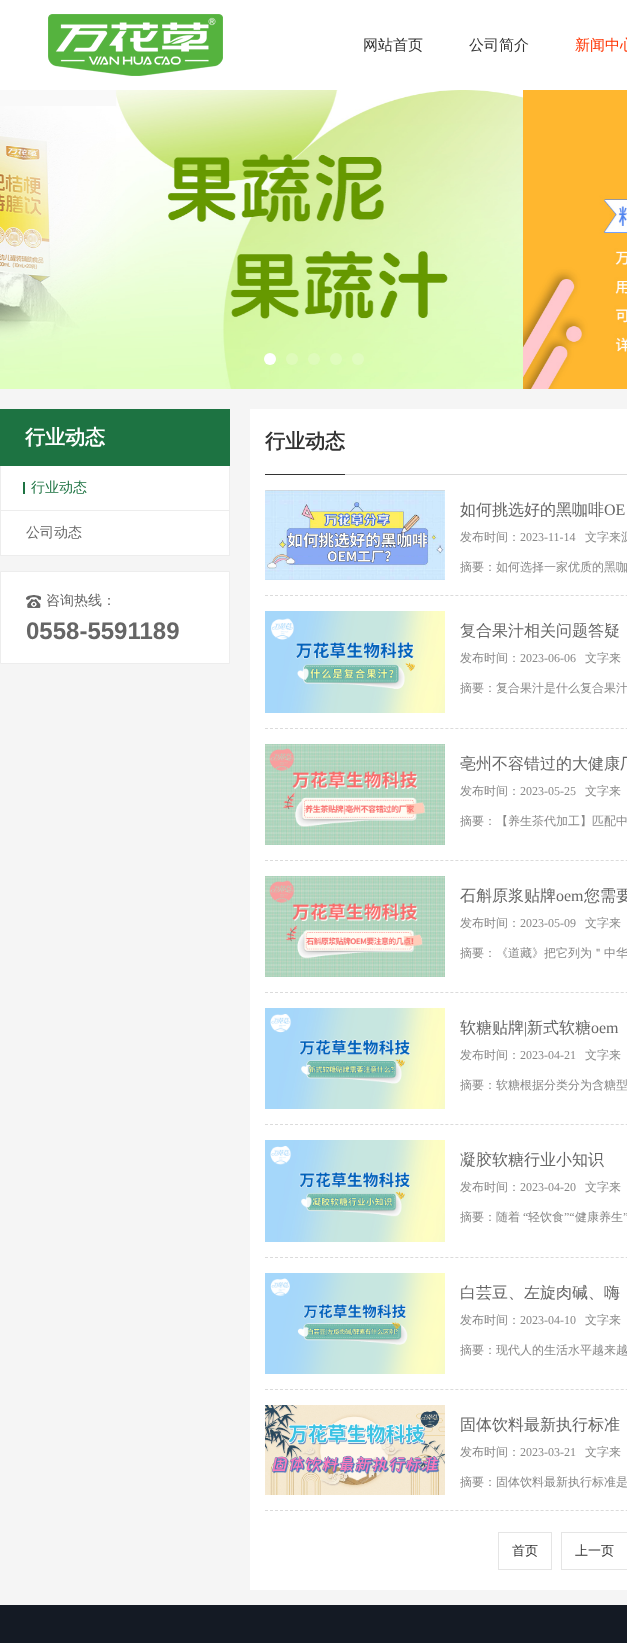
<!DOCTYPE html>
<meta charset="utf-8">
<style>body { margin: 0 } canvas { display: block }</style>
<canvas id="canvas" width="627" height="1643"></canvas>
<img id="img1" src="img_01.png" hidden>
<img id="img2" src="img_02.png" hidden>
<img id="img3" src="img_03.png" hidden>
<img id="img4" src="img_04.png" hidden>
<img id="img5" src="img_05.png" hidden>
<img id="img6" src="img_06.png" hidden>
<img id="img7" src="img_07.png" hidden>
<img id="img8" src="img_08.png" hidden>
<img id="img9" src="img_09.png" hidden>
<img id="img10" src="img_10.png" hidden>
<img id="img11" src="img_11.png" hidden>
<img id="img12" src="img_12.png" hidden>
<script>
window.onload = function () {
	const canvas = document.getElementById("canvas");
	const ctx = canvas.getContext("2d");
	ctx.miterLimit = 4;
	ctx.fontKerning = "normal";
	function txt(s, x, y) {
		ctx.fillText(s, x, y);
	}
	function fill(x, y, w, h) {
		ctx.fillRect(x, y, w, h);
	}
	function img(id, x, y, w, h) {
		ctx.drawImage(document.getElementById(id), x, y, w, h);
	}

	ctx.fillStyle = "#FFFFFF";
	fill(0, 0, 627, 1643);
	img("img1", 48, 14, 175, 62);
	img("img2", 0, 90, 523, 299);
	img("img3", 523, 90, 104, 299);
	ctx.beginPath();
	ctx.arc(270, 359, 6, 0, Math.PI * 2);
	ctx.fill();
	ctx.fillStyle = "#DFFBBA";
	ctx.beginPath();
	ctx.arc(292, 359, 6, 0, Math.PI * 2);
	ctx.fill();
	ctx.fillStyle = "rgba(255, 255, 255, 0.2)";
	ctx.beginPath();
	ctx.arc(314, 359, 6, 0, Math.PI * 2);
	ctx.fill();
	ctx.fillStyle = "#E0FCBE";
	ctx.beginPath();
	ctx.arc(336, 359, 6, 0, Math.PI * 2);
	ctx.fill();
	ctx.fillStyle = "#E1FCC0";
	ctx.beginPath();
	ctx.arc(358, 359, 6, 0, Math.PI * 2);
	ctx.fill();
	ctx.fillStyle = "#F5F5F5";
	fill(0, 389, 627, 1216);
	ctx.fillStyle = "#FFFFFF";
	fill(1, 466, 228, 89);
	ctx.fillStyle = "#1D7342";
	fill(0, 409, 230, 57);
	ctx.fillStyle = "#EDEDED";
	fill(229, 466, 1, 90);
	fill(0, 555, 230, 1);
	fill(0, 466, 1, 90);
	fill(1, 510, 228, 1);
	ctx.fillStyle = "#1D7342";
	fill(23, 482, 2, 12);
	ctx.fillStyle = "#FFFFFF";
	ctx.beginPath();
	ctx.rect(0.5, 571.5, 229, 92);
	ctx.fill();
	ctx.strokeStyle = "#EDEDED";
	ctx.stroke();
	img("img4", 26, 595, 15, 13);
	fill(250, 409, 377, 1181);
	ctx.fillStyle = "#DBDBDB";
	fill(345, 474, 282, 1);
	ctx.fillStyle = "#333333";
	fill(265, 474, 80, 1);
	ctx.beginPath();
	ctx.moveTo(265, 595.5);
	ctx.lineTo(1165, 595.5);
	ctx.strokeStyle = "#DBDBDB";
	ctx.setLineDash([3, 2.01]);
	ctx.stroke();
	img("img5", 265, 490, 180, 90);
	ctx.beginPath();
	ctx.moveTo(265, 728.5);
	ctx.lineTo(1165, 728.5);
	ctx.stroke();
	img("img6", 265, 611, 180, 102);
	ctx.beginPath();
	ctx.moveTo(265, 860.5);
	ctx.lineTo(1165, 860.5);
	ctx.stroke();
	img("img7", 265, 744, 180, 101);
	ctx.beginPath();
	ctx.moveTo(265, 992.5);
	ctx.lineTo(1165, 992.5);
	ctx.stroke();
	img("img8", 265, 876, 180, 101);
	ctx.beginPath();
	ctx.moveTo(265, 1124.5);
	ctx.lineTo(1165, 1124.5);
	ctx.stroke();
	img("img9", 265, 1008, 180, 101);
	ctx.beginPath();
	ctx.moveTo(265, 1257.5);
	ctx.lineTo(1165, 1257.5);
	ctx.stroke();
	img("img10", 265, 1140, 180, 102);
	ctx.beginPath();
	ctx.moveTo(265, 1389.5);
	ctx.lineTo(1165, 1389.5);
	ctx.stroke();
	img("img11", 265, 1273, 180, 101);
	ctx.beginPath();
	ctx.moveTo(265, 1510.5);
	ctx.lineTo(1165, 1510.5);
	ctx.stroke();
	img("img12", 265, 1405, 180, 90);
	ctx.strokeStyle = "#E5E5E5";
	ctx.setLineDash([]);
	ctx.strokeRect(498.5, 1532.5, 53, 37);
	ctx.strokeRect(561.5, 1532.5, 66, 37);
	ctx.fillStyle = "#141A24";
	fill(0, 1605, 627, 38);
	ctx.font = "500 15px WenQuanYi Zen Hei";
	ctx.fillStyle = "#333333";
	txt("网站首页", 363, 50);
	txt("公司简介", 469, 50);
	ctx.fillStyle = "#FF3300";
	txt("新闻中心", 575, 50);
	ctx.font = "bold 20px WenQuanYi Zen Hei";
	ctx.fillStyle = "#FFFFFF";
	txt("行业动态", 25, 444);
	ctx.font = "500 14px WenQuanYi Zen Hei";
	ctx.fillStyle = "#1D7342";
	txt("行业动态", 31, 492);
	ctx.fillStyle = "#666666";
	txt("公司动态", 26, 537);
	txt("咨询热线：", 46, 605);
	ctx.font = "bold 24px Liberation Sans";
	txt("0558-5591189", 26, 639);
	ctx.font = "bold 20px WenQuanYi Zen Hei";
	ctx.fillStyle = "#333333";
	txt("行业动态", 265, 448);
	ctx.font = "500 16px WenQuanYi Zen Hei";
	ctx.fillStyle = "#666666";
	txt("如何挑选好的黑咖啡", 460, 515);
	ctx.font = "16px Liberation Serif";
	txt("OE", 604, 515);
	ctx.font = "500 12px WenQuanYi Zen Hei";
	ctx.fillStyle = "#888888";
	txt("发布时间：", 460, 541);
	ctx.font = "12px Liberation Serif";
	txt("2023-11-14", 520, 541);
	ctx.font = "500 12px WenQuanYi Zen Hei";
	txt("文字来源", 585, 541);
	txt("摘要：如何选择一家优质的黑咖", 460, 571);
	ctx.font = "500 16px WenQuanYi Zen Hei";
	ctx.fillStyle = "#666666";
	txt("复合果汁相关问题答疑", 460, 636);
	ctx.font = "500 12px WenQuanYi Zen Hei";
	ctx.fillStyle = "#888888";
	txt("发布时间：", 460, 662);
	ctx.font = "12px Liberation Serif";
	txt("2023-06-06", 520, 662);
	ctx.font = "500 12px WenQuanYi Zen Hei";
	txt("文字来", 585, 662);
	txt("摘要：复合果汁是什么复合果汁", 460, 692);
	ctx.font = "500 16px WenQuanYi Zen Hei";
	ctx.fillStyle = "#666666";
	txt("亳州不容错过的大健康厂", 460, 769);
	ctx.font = "500 12px WenQuanYi Zen Hei";
	ctx.fillStyle = "#888888";
	txt("发布时间：", 460, 795);
	ctx.font = "12px Liberation Serif";
	txt("2023-05-25", 520, 795);
	ctx.font = "500 12px WenQuanYi Zen Hei";
	txt("文字来", 585, 795);
	txt("摘要：【养生茶代加工】匹配中", 460, 825);
	ctx.font = "500 16px WenQuanYi Zen Hei";
	ctx.fillStyle = "#666666";
	txt("石斛原浆贴牌", 460, 901);
	ctx.font = "16px Liberation Serif";
	txt("oem", 556, 901);
	ctx.font = "500 16px WenQuanYi Zen Hei";
	txt("您需要", 584, 901);
	ctx.font = "500 12px WenQuanYi Zen Hei";
	ctx.fillStyle = "#888888";
	txt("发布时间：", 460, 927);
	ctx.font = "12px Liberation Serif";
	txt("2023-05-09", 520, 927);
	ctx.font = "500 12px WenQuanYi Zen Hei";
	txt("文字来", 585, 927);
	txt("摘要：《道藏》把它列为＂中华", 460, 957);
	ctx.font = "500 16px WenQuanYi Zen Hei";
	ctx.fillStyle = "#666666";
	txt("软糖贴牌", 460, 1033);
	ctx.font = "16px Liberation Serif";
	txt("|", 524, 1033);
	ctx.font = "500 16px WenQuanYi Zen Hei";
	txt("新式软糖", 527, 1033);
	ctx.font = "16px Liberation Serif";
	txt("oem", 591, 1033);
	ctx.font = "500 12px WenQuanYi Zen Hei";
	ctx.fillStyle = "#888888";
	txt("发布时间：", 460, 1059);
	ctx.font = "12px Liberation Serif";
	txt("2023-04-21", 520, 1059);
	ctx.font = "500 12px WenQuanYi Zen Hei";
	txt("文字来", 585, 1059);
	txt("摘要：软糖根据分类分为含糖型", 460, 1089);
	ctx.font = "500 16px WenQuanYi Zen Hei";
	ctx.fillStyle = "#666666";
	txt("凝胶软糖行业小知识", 460, 1165);
	ctx.font = "500 12px WenQuanYi Zen Hei";
	ctx.fillStyle = "#888888";
	txt("发布时间：", 460, 1191);
	ctx.font = "12px Liberation Serif";
	txt("2023-04-20", 520, 1191);
	ctx.font = "500 12px WenQuanYi Zen Hei";
	txt("文字来", 585, 1191);
	txt("摘要：随着", 460, 1221);
	ctx.font = "12px Liberation Serif";
	txt("“", 523, 1221);
	ctx.font = "500 12px WenQuanYi Zen Hei";
	txt("轻饮食", 528, 1221);
	ctx.font = "12px Liberation Serif";
	txt("”“", 564, 1221);
	ctx.font = "500 12px WenQuanYi Zen Hei";
	txt("健康养生", 575, 1221);
	ctx.font = "12px Liberation Serif";
	txt("”", 623, 1221);
	ctx.font = "500 16px WenQuanYi Zen Hei";
	ctx.fillStyle = "#666666";
	txt("白芸豆、左旋肉碱、嗨", 460, 1298);
	ctx.font = "500 12px WenQuanYi Zen Hei";
	ctx.fillStyle = "#888888";
	txt("发布时间：", 460, 1324);
	ctx.font = "12px Liberation Serif";
	txt("2023-04-10", 520, 1324);
	ctx.font = "500 12px WenQuanYi Zen Hei";
	txt("文字来", 585, 1324);
	txt("摘要：现代人的生活水平越来越", 460, 1354);
	ctx.font = "500 16px WenQuanYi Zen Hei";
	ctx.fillStyle = "#666666";
	txt("固体饮料最新执行标准", 460, 1430);
	ctx.font = "500 12px WenQuanYi Zen Hei";
	ctx.fillStyle = "#888888";
	txt("发布时间：", 460, 1456);
	ctx.font = "12px Liberation Serif";
	txt("2023-03-21", 520, 1456);
	ctx.font = "500 12px WenQuanYi Zen Hei";
	txt("文字来", 585, 1456);
	txt("摘要：固体饮料最新执行标准是", 460, 1486);
	ctx.font = "500 13px WenQuanYi Zen Hei";
	ctx.fillStyle = "#333333";
	txt("首页", 512, 1555);
	txt("上一页", 575, 1555);
};
</script>
